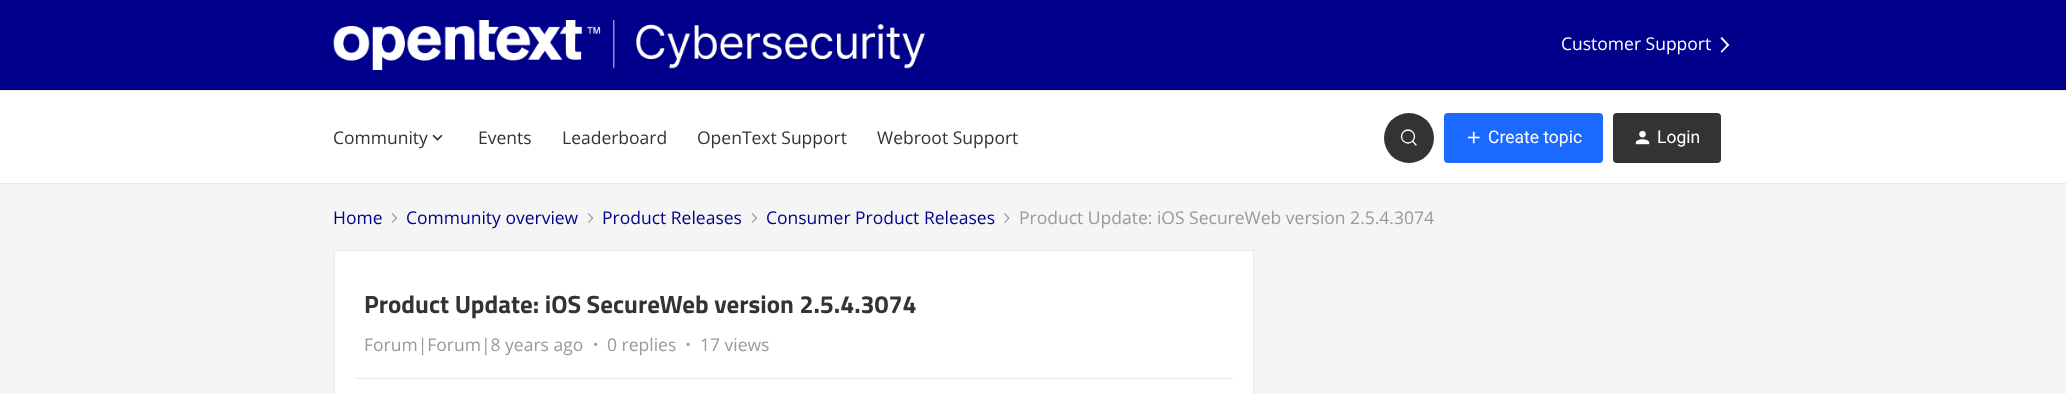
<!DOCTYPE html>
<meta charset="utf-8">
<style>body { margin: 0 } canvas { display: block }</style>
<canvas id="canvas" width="2066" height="394"></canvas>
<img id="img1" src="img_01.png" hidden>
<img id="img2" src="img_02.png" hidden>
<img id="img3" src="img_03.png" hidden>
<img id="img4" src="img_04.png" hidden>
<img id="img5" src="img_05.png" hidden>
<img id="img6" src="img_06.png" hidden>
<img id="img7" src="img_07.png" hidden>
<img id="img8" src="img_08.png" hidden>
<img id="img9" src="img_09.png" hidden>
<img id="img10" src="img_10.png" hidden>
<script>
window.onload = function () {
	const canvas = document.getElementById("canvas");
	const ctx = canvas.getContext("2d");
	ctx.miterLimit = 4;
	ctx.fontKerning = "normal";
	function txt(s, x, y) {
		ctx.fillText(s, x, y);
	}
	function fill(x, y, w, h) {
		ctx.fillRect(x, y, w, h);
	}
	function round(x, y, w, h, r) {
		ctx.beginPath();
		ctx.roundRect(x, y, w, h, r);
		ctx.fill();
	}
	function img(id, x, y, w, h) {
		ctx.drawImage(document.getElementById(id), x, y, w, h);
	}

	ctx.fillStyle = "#F5F5F5";
	fill(0, 0, 2066, 394);
	ctx.fillStyle = "#00008B";
	fill(0, 0, 2066, 90);
	img("img1", 333, 20, 592, 50);
	img("img2", 1720, 37, 10, 16);
	ctx.fillStyle = "#FFFFFF";
	fill(0, 91, 2066, 92);
	ctx.fillStyle = "#EAEAEA";
	fill(0, 90, 2066, 1);
	fill(0, 183, 2066, 1);
	img("img3", 432, 134, 11, 7);
	ctx.fillStyle = "#333333";
	ctx.beginPath();
	ctx.arc(1409, 138, 25, 0, Math.PI * 2);
	ctx.fill();
	ctx.beginPath();
	ctx.arc(1408, 136.5, 6.5, 0, Math.PI * 2);
	ctx.strokeStyle = "#FFFFFF";
	ctx.lineWidth = 1.3;
	ctx.stroke();
	ctx.beginPath();
	ctx.moveTo(1412.5, 141);
	ctx.lineTo(1416, 145);
	ctx.lineCap = "round";
	ctx.stroke();
	ctx.fillStyle = "#1A6AFF";
	round(1444, 113, 159, 50, 4);
	img("img4", 1467, 131, 13, 13);
	ctx.fillStyle = "#333333";
	round(1613, 113, 108, 50, 4);
	img("img5", 1635, 130, 15, 15);
	img("img6", 391, 213, 7, 10);
	img("img7", 587, 213, 7, 10);
	img("img6", 751, 213, 7, 10);
	img("img8", 1004, 213, 6, 10);
	ctx.fillStyle = "#FFFFFF";
	ctx.beginPath();
	ctx.rect(334.5, 250.5, 919, 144);
	ctx.fill();
	ctx.strokeStyle = "#EAEAEA";
	ctx.lineWidth = 1;
	ctx.stroke();
	img("img9", 594, 342, 4, 4);
	img("img10", 686, 342, 4, 4);
	ctx.fillStyle = "#EAEAEA";
	fill(355, 378, 878, 1);
	ctx.font = "17.5px Open Sans";
	ctx.fillStyle = "#FFFFFF";
	txt("Customer Support", 1561, 50);
	ctx.fillStyle = "#333333";
	txt("Community", 333, 144);
	txt("Events", 478, 144);
	txt("Leaderboard", 562, 144);
	txt("OpenText Support", 697, 144);
	txt("Webroot Support", 877, 144);
	ctx.font = "17.5px Roboto";
	ctx.fillStyle = "#FFFFFF";
	txt("Create topic", 1488, 143);
	txt("Login", 1657, 143);
	ctx.font = "17.5px Open Sans";
	ctx.fillStyle = "#00008B";
	txt("Home", 333, 224);
	txt("Community overview", 406, 224);
	txt("Product Releases", 602, 224);
	txt("Consumer Product Releases", 766, 224);
	ctx.fillStyle = "#999999";
	txt("Product Update: iOS SecureWeb version 2.5.4.3074", 1019, 224);
	ctx.font = "bold 25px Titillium";
	ctx.fillStyle = "#333333";
	txt("Product Update: iOS SecureWeb version 2.5.4.3074", 364, 313);
	ctx.font = "17.5px Open Sans";
	ctx.fillStyle = "#999999";
	txt("Forum|Forum|8 years ago", 364, 351);
	txt("0 replies", 607, 351);
	txt("17 views", 700, 351);
};
</script>
